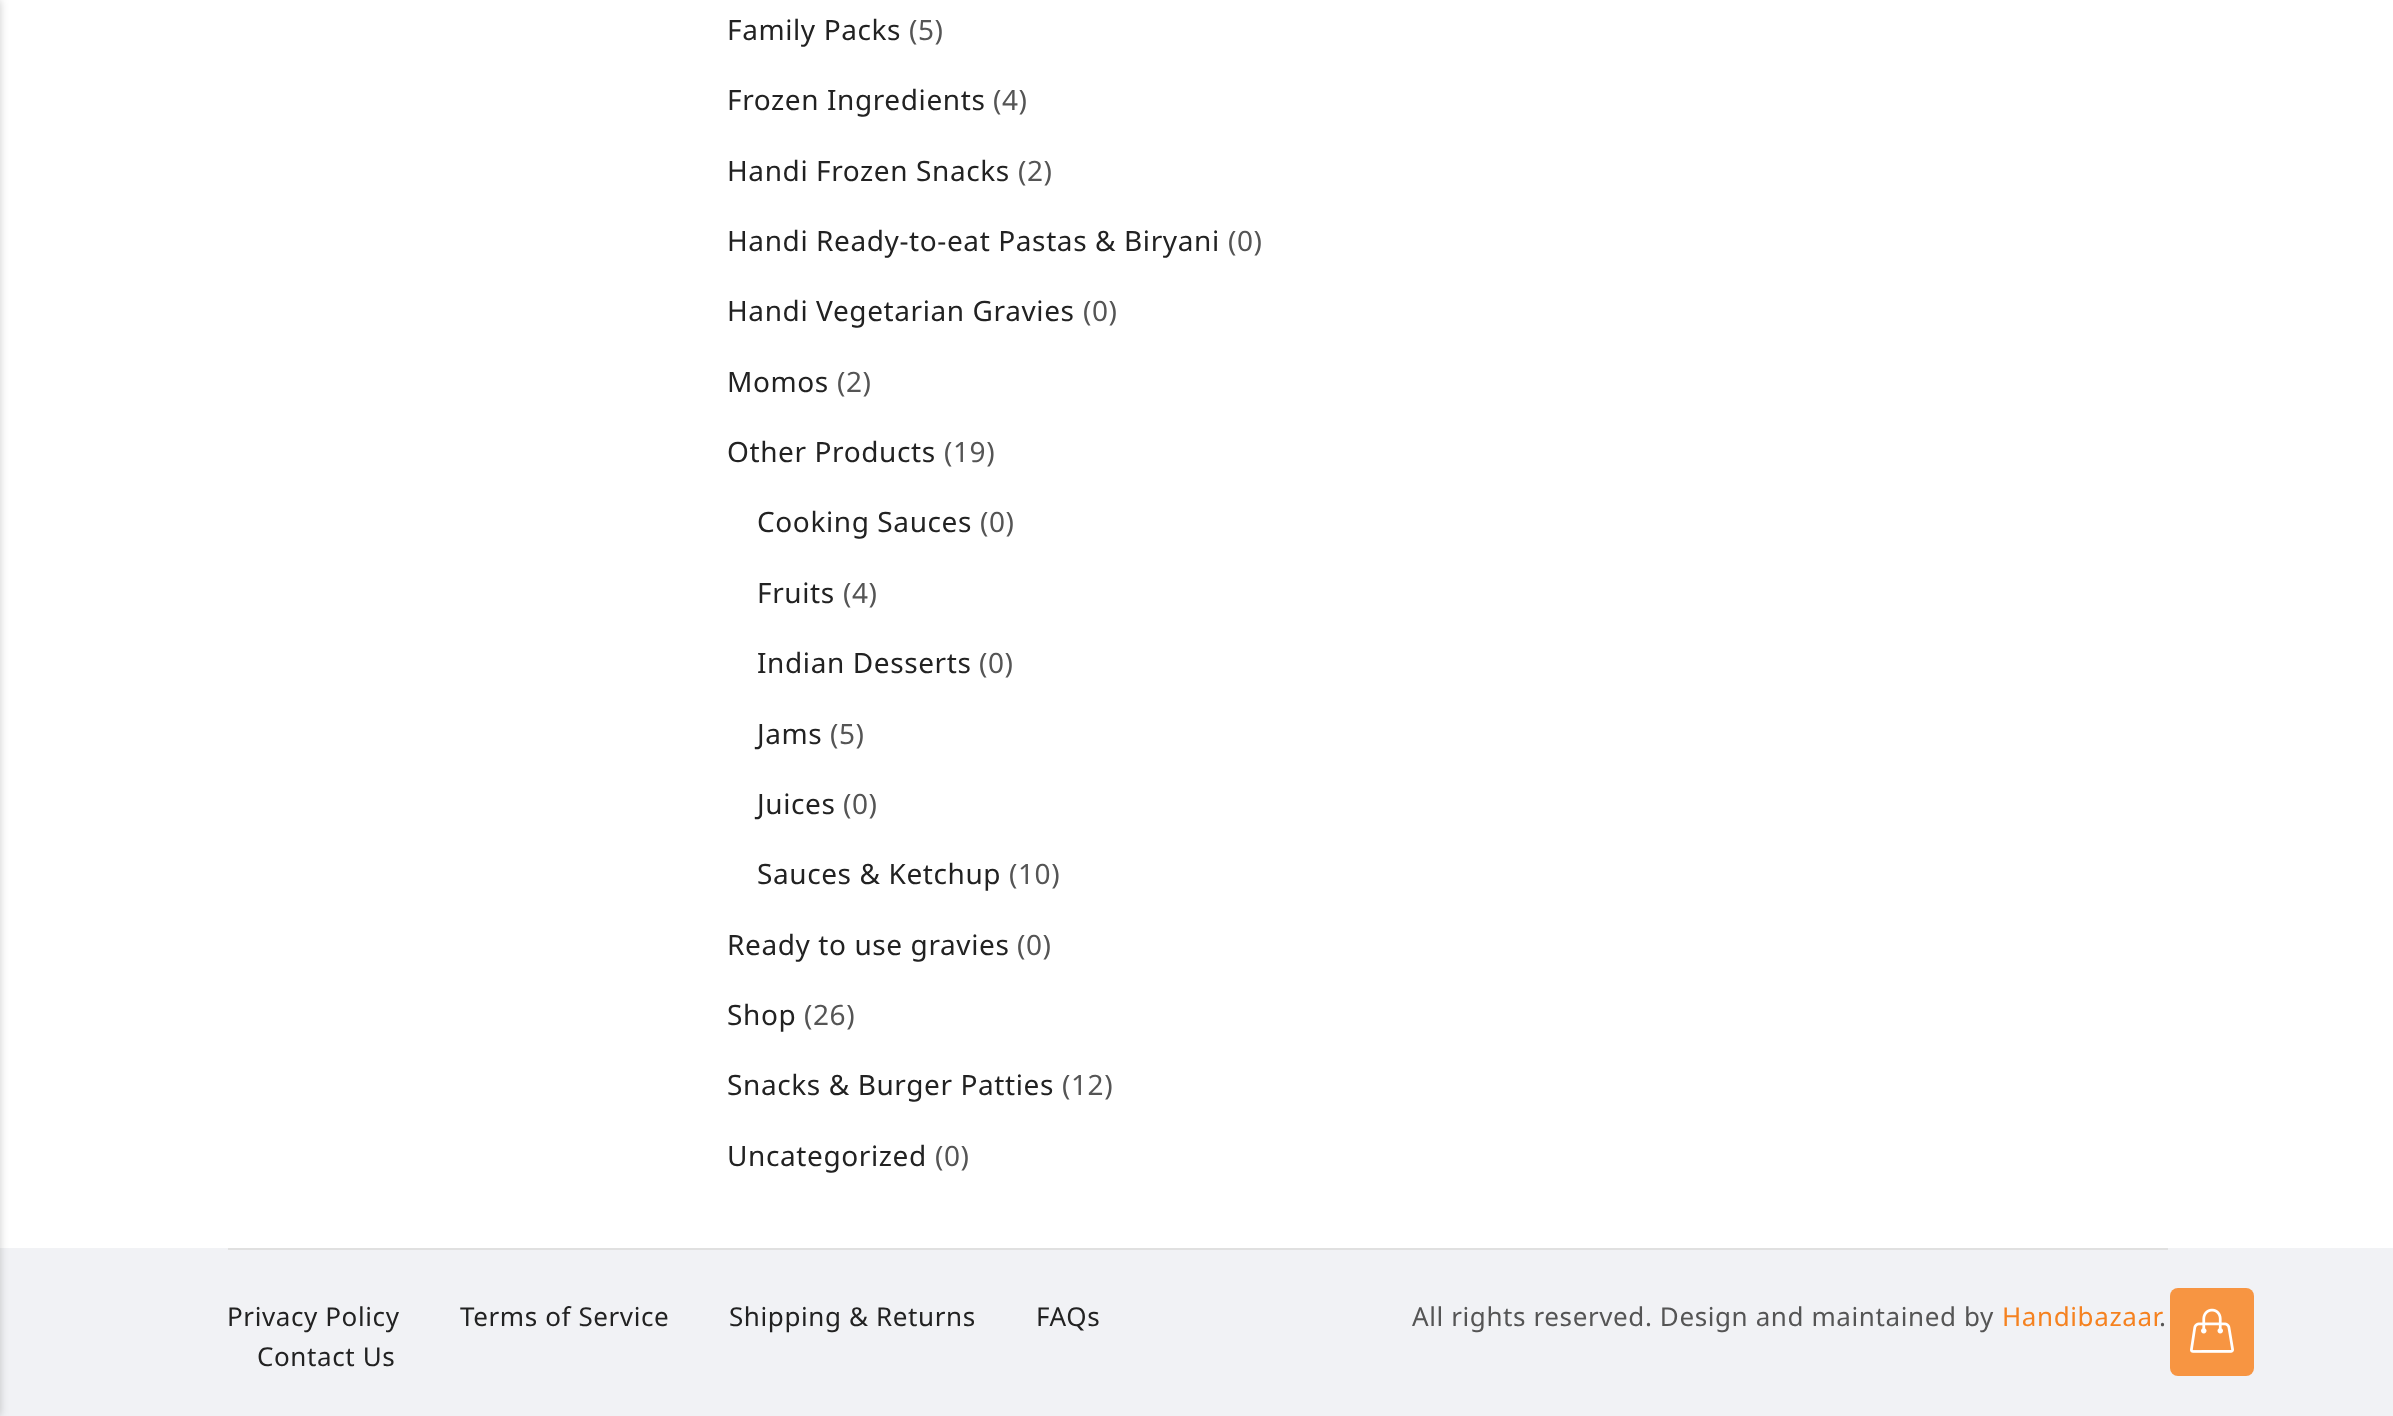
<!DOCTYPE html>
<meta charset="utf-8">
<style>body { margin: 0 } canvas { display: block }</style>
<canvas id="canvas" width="2393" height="1416"></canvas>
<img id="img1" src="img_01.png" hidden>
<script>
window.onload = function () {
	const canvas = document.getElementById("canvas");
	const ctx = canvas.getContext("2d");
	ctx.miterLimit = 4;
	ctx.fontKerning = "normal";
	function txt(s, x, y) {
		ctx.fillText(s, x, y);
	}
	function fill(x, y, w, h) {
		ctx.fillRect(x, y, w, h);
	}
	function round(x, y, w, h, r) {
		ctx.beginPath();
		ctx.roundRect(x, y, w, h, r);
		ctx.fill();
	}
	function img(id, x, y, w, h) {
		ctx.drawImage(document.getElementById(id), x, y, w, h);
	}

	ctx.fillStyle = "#FFFFFF";
	fill(0, 0, 2393, 1416);
	ctx.fillStyle = "#F1F2F5";
	fill(0, 1248, 2393, 168);
	ctx.fillStyle = "rgba(0, 0, 0, 0.2)";
	ctx.filter = "blur(4px)";
	ctx.beginPath();
	ctx.rect(-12, 0, 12, 1416);
	ctx.fill();
	ctx.filter = "none";
	ctx.fillStyle = "#E0E0E0";
	fill(228, 1248, 1940, 2);
	ctx.fillStyle = "#F79542";
	round(2170, 1288, 84, 88, 8);
	img("img1", 2190, 1308, 44, 45);
	ctx.letterSpacing = "0.6px";
	ctx.font = "28px Noto Sans";
	ctx.fillStyle = "#222222";
	txt("Family Packs", 727, 40);
	ctx.fillStyle = "#555555";
	txt("(5)", 909, 40);
	ctx.fillStyle = "#222222";
	txt("Frozen Ingredients", 727, 110);
	ctx.fillStyle = "#555555";
	txt("(4)", 993, 110);
	ctx.fillStyle = "#222222";
	txt("Handi Frozen Snacks", 727, 181);
	ctx.fillStyle = "#555555";
	txt("(2)", 1018, 181);
	ctx.fillStyle = "#222222";
	txt("Handi Ready-to-eat Pastas & Biryani", 727, 251);
	ctx.fillStyle = "#555555";
	txt("(0)", 1228, 251);
	ctx.fillStyle = "#222222";
	txt("Handi Vegetarian Gravies", 727, 321);
	ctx.fillStyle = "#555555";
	txt("(0)", 1083, 321);
	ctx.fillStyle = "#222222";
	txt("Momos", 727, 392);
	ctx.fillStyle = "#555555";
	txt("(2)", 837, 392);
	ctx.fillStyle = "#222222";
	txt("Other Products", 727, 462);
	ctx.fillStyle = "#555555";
	txt("(19)", 944, 462);
	ctx.fillStyle = "#222222";
	txt("Cooking Sauces", 757, 532);
	ctx.fillStyle = "#555555";
	txt("(0)", 980, 532);
	ctx.fillStyle = "#222222";
	txt("Fruits", 757, 603);
	ctx.fillStyle = "#555555";
	txt("(4)", 843, 603);
	ctx.fillStyle = "#222222";
	txt("Indian Desserts", 757, 673);
	ctx.fillStyle = "#555555";
	txt("(0)", 979, 673);
	ctx.fillStyle = "#222222";
	txt("Jams", 757, 744);
	ctx.fillStyle = "#555555";
	txt("(5)", 830, 744);
	ctx.fillStyle = "#222222";
	txt("Juices", 757, 814);
	ctx.fillStyle = "#555555";
	txt("(0)", 843, 814);
	ctx.fillStyle = "#222222";
	txt("Sauces & Ketchup", 757, 884);
	ctx.fillStyle = "#555555";
	txt("(10)", 1009, 884);
	ctx.fillStyle = "#222222";
	txt("Ready to use gravies", 727, 955);
	ctx.fillStyle = "#555555";
	txt("(0)", 1017, 955);
	ctx.fillStyle = "#222222";
	txt("Shop", 727, 1025);
	ctx.fillStyle = "#555555";
	txt("(26)", 804, 1025);
	ctx.fillStyle = "#222222";
	txt("Snacks & Burger Patties", 727, 1095);
	ctx.fillStyle = "#555555";
	txt("(12)", 1062, 1095);
	ctx.fillStyle = "#222222";
	txt("Uncategorized", 727, 1166);
	ctx.fillStyle = "#555555";
	txt("(0)", 935, 1166);
	ctx.font = "26px Noto Sans";
	ctx.fillStyle = "#222222";
	txt("Privacy Policy", 227, 1326);
	txt("Terms of Service", 460, 1326);
	txt("Shipping & Returns", 729, 1326);
	txt("FAQs", 1036, 1326);
	txt("Contact Us", 257, 1366);
	ctx.fillStyle = "#555555";
	txt("All rights reserved. Design and maintained by", 1412, 1326);
	ctx.fillStyle = "#F58220";
	txt("Handibazaar", 2002, 1326);
	ctx.fillStyle = "#555555";
	txt(".", 2159, 1326);
};
</script>
